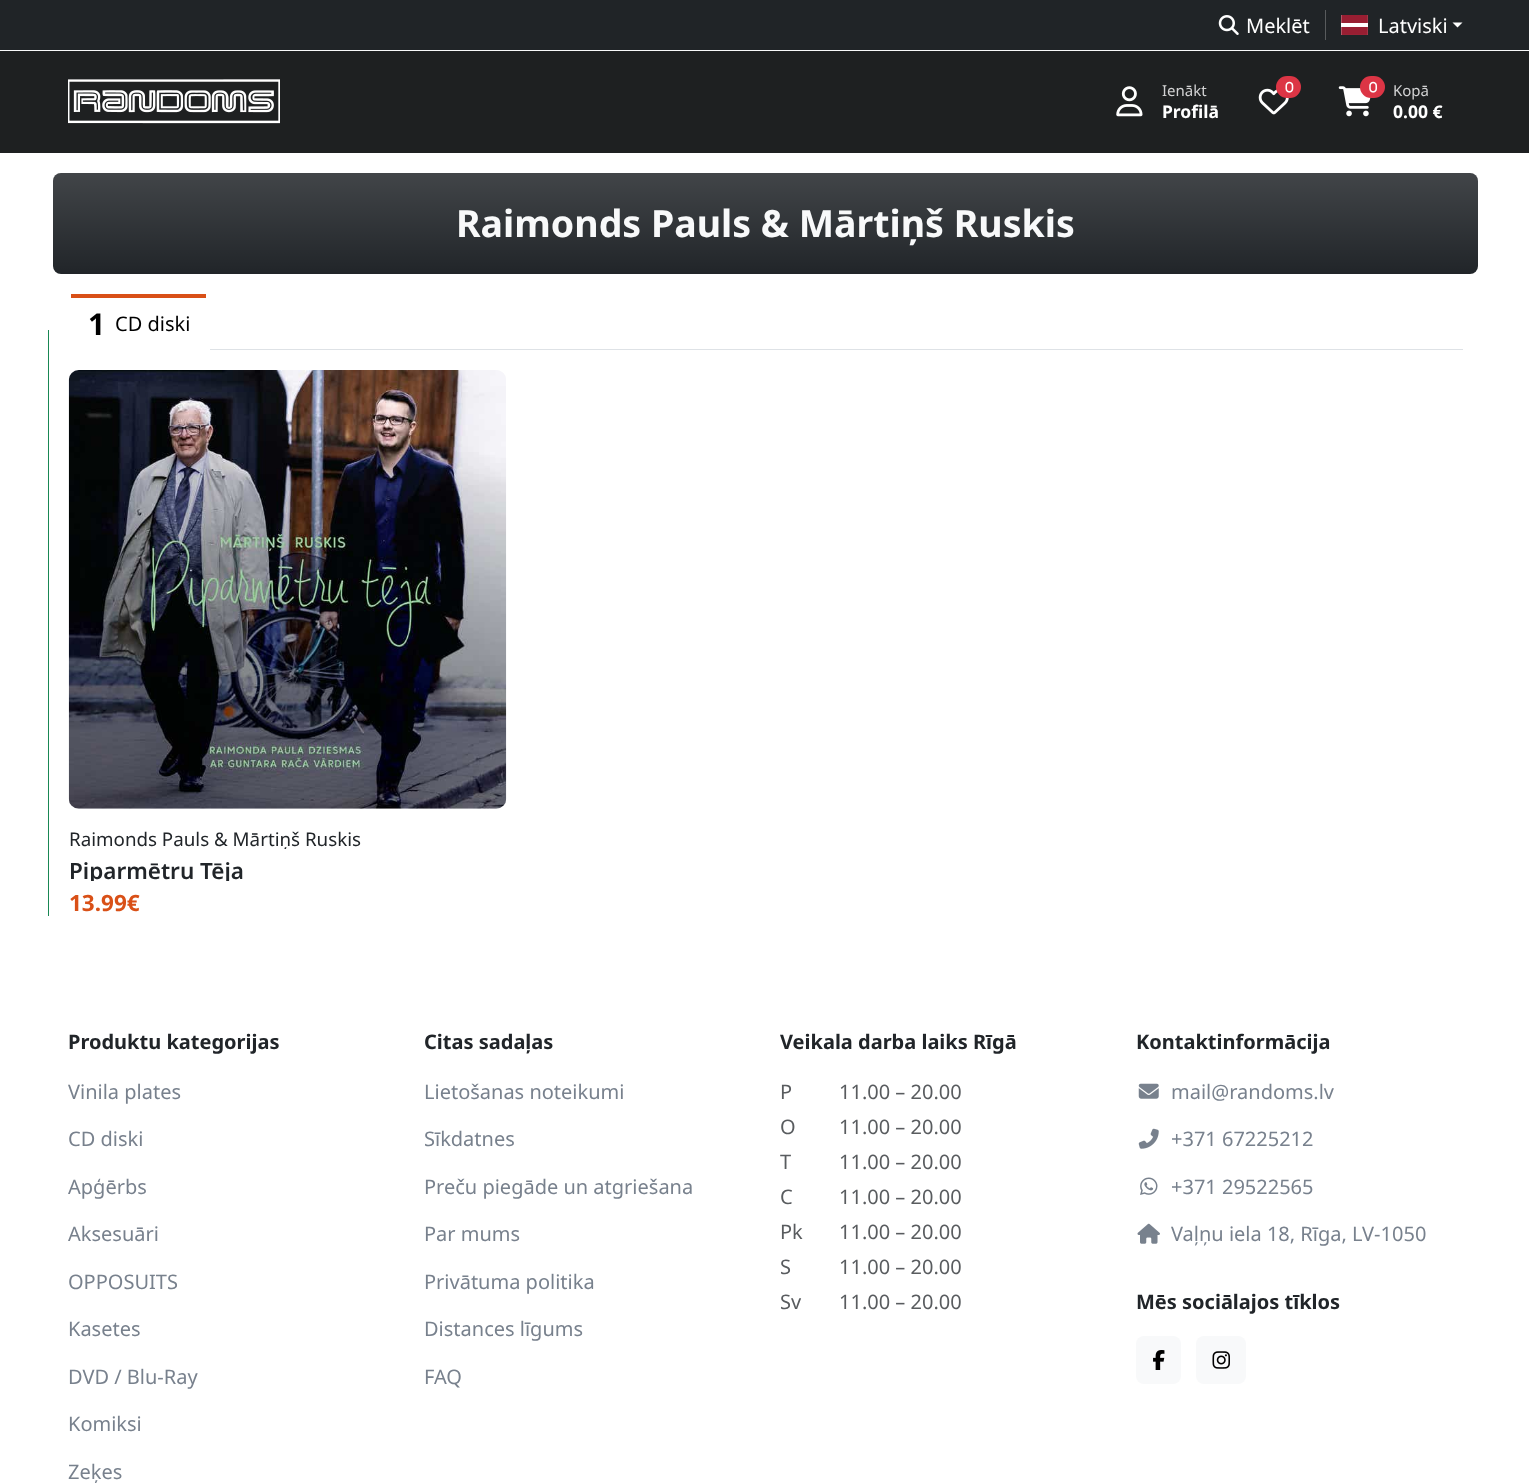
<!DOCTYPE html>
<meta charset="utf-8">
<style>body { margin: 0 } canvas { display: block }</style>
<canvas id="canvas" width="1529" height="1483"></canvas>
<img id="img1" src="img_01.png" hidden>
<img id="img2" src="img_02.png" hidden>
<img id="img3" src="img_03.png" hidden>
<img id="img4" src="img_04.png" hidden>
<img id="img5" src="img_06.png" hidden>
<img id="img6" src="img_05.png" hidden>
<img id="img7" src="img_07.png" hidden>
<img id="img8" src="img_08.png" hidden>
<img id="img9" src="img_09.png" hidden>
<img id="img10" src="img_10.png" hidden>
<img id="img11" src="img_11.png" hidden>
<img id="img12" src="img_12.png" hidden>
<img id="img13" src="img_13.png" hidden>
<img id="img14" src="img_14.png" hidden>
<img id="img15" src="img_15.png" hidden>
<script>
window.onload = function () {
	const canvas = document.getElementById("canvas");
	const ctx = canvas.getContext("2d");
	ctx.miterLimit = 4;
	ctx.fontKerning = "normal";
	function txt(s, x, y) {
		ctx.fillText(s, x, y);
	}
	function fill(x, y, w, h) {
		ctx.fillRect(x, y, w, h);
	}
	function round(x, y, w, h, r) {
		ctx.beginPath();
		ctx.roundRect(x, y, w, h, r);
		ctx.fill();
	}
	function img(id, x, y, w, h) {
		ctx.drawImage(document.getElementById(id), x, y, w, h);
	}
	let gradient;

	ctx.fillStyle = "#FFFFFF";
	fill(0, 0, 1529, 1483);
	ctx.fillStyle = "#1E2021";
	fill(0, 51, 1529, 102);
	ctx.fillStyle = "#202427";
	fill(0, 0, 1529, 50);
	ctx.fillStyle = "#F8F9FA";
	fill(0, 50, 1529, 1);
	img("img1", 1218, 15, 21, 20);
	ctx.fillStyle = "#585B5D";
	fill(1325, 10, 1, 30);
	img("img2", 1341, 15, 27, 20);
	ctx.fillStyle = "#FFFFFF";
	ctx.beginPath();
	ctx.moveTo(1452.5, 22.5);
	ctx.lineTo(1462.5, 22.5);
	ctx.lineTo(1457.5, 27.5);
	ctx.closePath();
	ctx.fill();
	img("img3", 68, 79, 212, 45);
	img("img4", 1116, 86, 27, 31);
	img("img5", 1258, 88, 31, 27);
	ctx.fillStyle = "#DC3545";
	round(1276, 76, 25, 22, 11);
	img("img6", 1285, 81, 9, 12);
	img("img7", 1338, 86, 33, 31);
	round(1360, 76, 25, 22, 11);
	img("img8", 1369, 81, 9, 12);
	ctx.fillStyle = "#212529";
	round(53, 173, 1425, 101, 8);
	gradient = ctx.createLinearGradient(765, 172, 765, 274);
	gradient.addColorStop(0, "rgba(255, 255, 255, 0.15)");
	gradient.addColorStop(1, "rgba(255, 255, 255, 0)");
	ctx.fillStyle = gradient;
	round(53, 173, 1425, 101, 8);
	ctx.fillStyle = "#DEE2E6";
	fill(210, 349, 1253, 1);
	ctx.fillStyle = "#D95017";
	fill(71, 294, 135, 4);
	ctx.fillStyle = "#198754";
	fill(48, 330, 1, 586);
	ctx.fillStyle = "#F8F9FA";
	round(69, 370, 437, 439, 10);
	img("img9", 68, 370, 439, 439);
	img("img10", 1138, 1083, 21, 16);
	img("img11", 1138, 1128, 21, 21);
	img("img12", 1140, 1177, 18, 18);
	img("img13", 1137, 1223, 23, 21);
	round(1136, 1336, 45, 48, 8);
	img("img14", 1153, 1350, 12, 20);
	round(1196, 1336, 50, 48, 8);
	img("img15", 1212, 1351, 18, 18);
	ctx.font = "20px Noto Sans";
	ctx.fillStyle = "#FFFFFF";
	txt("Meklēt", 1246, 33);
	txt("Latviski", 1378, 33);
	ctx.font = "15px Noto Sans";
	ctx.fillStyle = "#D2D2D3";
	txt("Ienākt", 1162, 96);
	ctx.font = "bold 17.5px Noto Sans";
	ctx.fillStyle = "#FFFFFF";
	txt("Profilā", 1162, 118);
	ctx.font = "15px Noto Sans";
	ctx.fillStyle = "#D2D2D3";
	txt("Kopā", 1393, 96);
	ctx.font = "bold 17.5px Noto Sans";
	ctx.fillStyle = "#FFFFFF";
	txt("0.00 €", 1393, 118);
	ctx.font = "bold 37.5px Noto Sans";
	ctx.fillStyle = "#F8F9FA";
	txt("Raimonds Pauls & Mārtiņš Ruskis", 456, 237);
	ctx.font = "bold 30px Noto Sans";
	ctx.fillStyle = "#000000";
	txt("1", 88, 335);
	ctx.font = "20px Noto Sans";
	txt("CD diski", 115, 331);
	ctx.save();
	ctx.beginPath();
	ctx.rect(69, 829, 437, 20);
	ctx.clip();
	ctx.font = "18.75px Noto Sans";
	ctx.fillStyle = "#212529";
	txt("Raimonds Pauls & Mārtiņš Ruskis", 69, 846);
	ctx.restore();
	ctx.save();
	ctx.beginPath();
	ctx.rect(69, 859, 437, 22);
	ctx.clip();
	ctx.font = "600 22.5px Noto Sans";
	ctx.fillStyle = "#212529";
	txt("Piparmētru Tēja", 69, 879);
	ctx.restore();
	ctx.font = "bold 22.5px Noto Sans";
	ctx.fillStyle = "#D95017";
	txt("13.99€", 69, 911);
	ctx.font = "bold 20px Noto Sans";
	ctx.fillStyle = "#212529";
	txt("Produktu kategorijas", 68, 1049);
	ctx.font = "20px Noto Sans";
	ctx.fillStyle = "#78818D";
	txt("Vinila plates", 68, 1099);
	txt("CD diski", 68, 1146);
	txt("Apģērbs", 68, 1194);
	txt("Aksesuāri", 68, 1241);
	txt("OPPOSUITS", 68, 1289);
	txt("Kasetes", 68, 1336);
	txt("DVD / Blu-Ray", 68, 1384);
	txt("Komiksi", 68, 1431);
	txt("Zeķes", 68, 1479);
	ctx.font = "bold 20px Noto Sans";
	ctx.fillStyle = "#212529";
	txt("Citas sadaļas", 424, 1049);
	ctx.font = "20px Noto Sans";
	ctx.fillStyle = "#78818D";
	txt("Lietošanas noteikumi", 424, 1099);
	txt("Sīkdatnes", 424, 1146);
	txt("Preču piegāde un atgriešana", 424, 1194);
	txt("Par mums", 424, 1241);
	txt("Privātuma politika", 424, 1289);
	txt("Distances līgums", 424, 1336);
	txt("FAQ", 424, 1384);
	ctx.font = "bold 20px Noto Sans";
	ctx.fillStyle = "#212529";
	txt("Veikala darba laiks Rīgā", 780, 1049);
	ctx.font = "20px Noto Sans";
	ctx.fillStyle = "#595C5F";
	txt("P", 780, 1099);
	txt("11.00 – 20.00", 839, 1099);
	txt("O", 780, 1134);
	txt("11.00 – 20.00", 839, 1134);
	txt("T", 780, 1169);
	txt("11.00 – 20.00", 839, 1169);
	txt("C", 780, 1204);
	txt("11.00 – 20.00", 839, 1204);
	txt("Pk", 780, 1239);
	txt("11.00 – 20.00", 839, 1239);
	txt("S", 780, 1274);
	txt("11.00 – 20.00", 839, 1274);
	txt("Sv", 780, 1309);
	txt("11.00 – 20.00", 839, 1309);
	ctx.font = "bold 20px Noto Sans";
	ctx.fillStyle = "#212529";
	txt("Kontaktinformācija", 1136, 1049);
	ctx.font = "20px Noto Sans";
	ctx.fillStyle = "#78818D";
	txt("mail@randoms.lv", 1171, 1099);
	txt("+371 67225212", 1171, 1146);
	txt("+371 29522565", 1171, 1194);
	txt("Vaļņu iela 18, Rīga, LV-1050", 1171, 1241);
	ctx.font = "bold 20px Noto Sans";
	ctx.fillStyle = "#212529";
	txt("Mēs sociālajos tīklos", 1136, 1309);
};
</script>
